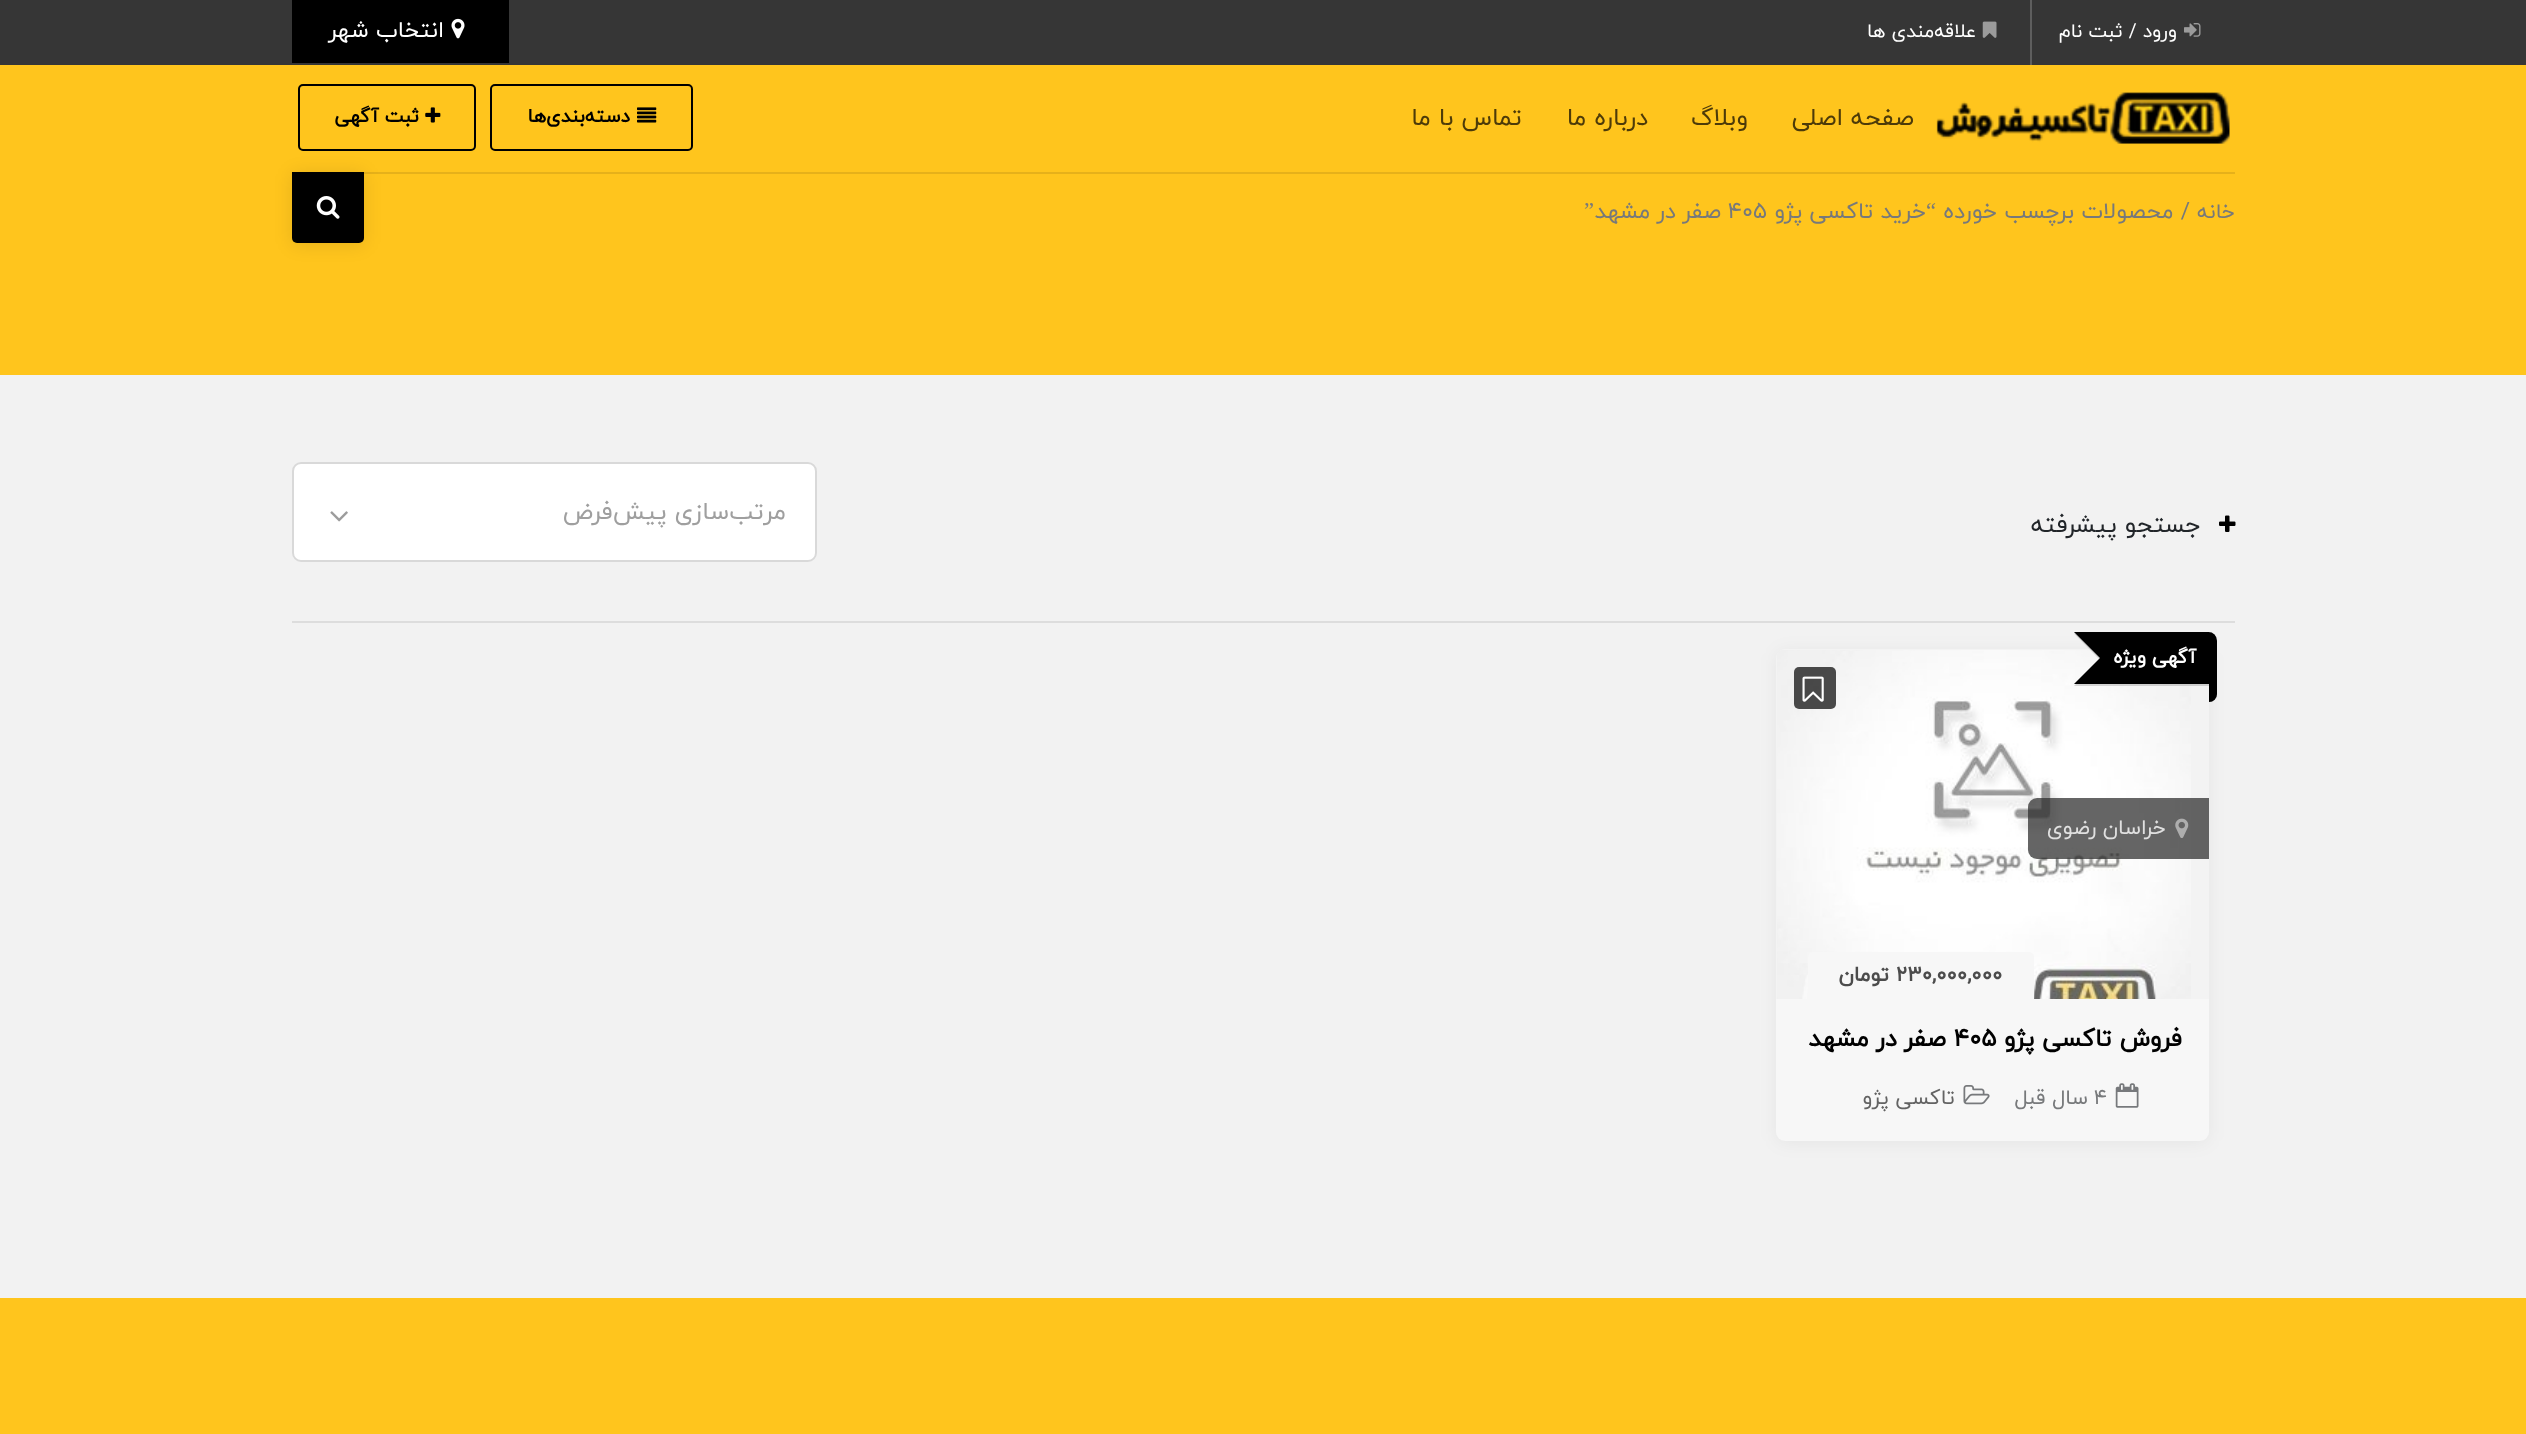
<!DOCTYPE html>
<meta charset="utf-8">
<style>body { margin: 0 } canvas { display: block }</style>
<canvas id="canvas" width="2526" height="1434"></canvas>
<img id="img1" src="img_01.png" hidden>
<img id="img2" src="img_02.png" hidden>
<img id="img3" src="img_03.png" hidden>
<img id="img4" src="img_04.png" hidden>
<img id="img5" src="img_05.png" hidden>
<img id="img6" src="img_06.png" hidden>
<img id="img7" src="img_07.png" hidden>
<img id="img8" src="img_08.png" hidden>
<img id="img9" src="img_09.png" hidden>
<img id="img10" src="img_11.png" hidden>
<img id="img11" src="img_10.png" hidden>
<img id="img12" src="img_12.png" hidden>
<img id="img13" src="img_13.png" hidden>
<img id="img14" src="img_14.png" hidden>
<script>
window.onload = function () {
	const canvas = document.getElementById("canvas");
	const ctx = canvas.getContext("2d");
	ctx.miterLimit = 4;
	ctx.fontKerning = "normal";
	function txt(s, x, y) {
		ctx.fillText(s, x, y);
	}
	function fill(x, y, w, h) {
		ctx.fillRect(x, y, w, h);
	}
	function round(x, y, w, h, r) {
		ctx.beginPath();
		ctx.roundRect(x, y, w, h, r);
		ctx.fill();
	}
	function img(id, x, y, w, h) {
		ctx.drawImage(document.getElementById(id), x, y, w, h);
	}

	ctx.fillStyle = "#F2F2F2";
	fill(0, 0, 2526, 1434);
	ctx.fillStyle = "#363636";
	fill(0, 0, 2526, 65);
	ctx.fillStyle = "#5E5E5E";
	fill(2030, 0, 2, 65);
	img("img1", 2184, 23, 17, 14);
	img("img2", 1982, 21, 15, 17);
	ctx.fillStyle = "#000000";
	fill(292, 0, 217, 63);
	img("img3", 451, 18, 14, 21);
	ctx.fillStyle = "#FFC51D";
	fill(0, 65, 2526, 310);
	ctx.fillStyle = "#E6B11A";
	fill(364, 172, 1871, 2);
	img("img4", 1936, 92, 294, 52);
	ctx.beginPath();
	ctx.roundRect(491, 85, 201, 65, 4);
	ctx.strokeStyle = "#000000";
	ctx.lineWidth = 2;
	ctx.stroke();
	img("img5", 637, 107, 20, 16);
	ctx.beginPath();
	ctx.roundRect(299, 85, 176, 65, 4);
	ctx.stroke();
	img("img6", 425, 107, 16, 16);
	ctx.fillStyle = "rgba(0, 0, 0, 0.1)";
	ctx.filter = "blur(9px)";
	ctx.beginPath();
	ctx.roundRect(292, 173, 72, 72, 5);
	ctx.fill();
	ctx.filter = "none";
	ctx.fillStyle = "#000000";
	ctx.beginPath();
	ctx.roundRect(292, 172, 72, 71, [0, 0, 5, 5]);
	ctx.fill();
	img("img7", 316, 196, 24, 23);
	ctx.fillStyle = "#DDDDDD";
	fill(292, 621, 1943, 2);
	img("img8", 2219, 515, 17, 17);
	ctx.fillStyle = "#FFFFFF";
	round(292, 462, 525, 100, 9);
	ctx.beginPath();
	ctx.roundRect(293, 463, 523, 98, 8);
	ctx.strokeStyle = "rgba(0, 0, 0, 0.15)";
	ctx.stroke();
	img("img9", 330, 511, 18, 11);
	ctx.fillStyle = "rgba(0, 0, 0, 0.05)";
	ctx.filter = "blur(9px)";
	ctx.beginPath();
	ctx.roundRect(1776, 651, 433, 492, 9);
	ctx.fill();
	ctx.filter = "none";
	ctx.fillStyle = "#F3F3F3";
	ctx.beginPath();
	ctx.roundRect(1776, 649, 433, 368, [9, 9, 0, 0]);
	ctx.fill();
	img("img10", 1777, 650, 414, 349);
	ctx.fillStyle = "rgba(0, 0, 0, 0.15)";
	ctx.beginPath();
	ctx.moveTo(2100, 684);
	ctx.lineTo(2100, 686);
	ctx.lineTo(2209, 686);
	ctx.lineTo(2209, 634);
	ctx.lineTo(2208, 634);
	ctx.lineTo(2208, 684);
	ctx.closePath();
	ctx.fill();
	ctx.fillStyle = "#000000";
	fill(2100, 632, 109, 52);
	ctx.beginPath();
	ctx.roundRect(2200, 632, 17, 17, [0, 8.5, 0, 0]);
	ctx.fill();
	fill(2209, 641, 8, 52);
	ctx.fillStyle = "rgba(0, 0, 0, 0.15)";
	ctx.beginPath();
	ctx.moveTo(2100, 633.5);
	ctx.lineTo(2100, 660);
	ctx.lineTo(2074, 633.5);
	ctx.closePath();
	ctx.moveTo(2100, 686);
	ctx.lineTo(2074, 686);
	ctx.lineTo(2100, 660);
	ctx.closePath();
	ctx.fill();
	ctx.fillStyle = "#000000";
	ctx.beginPath();
	ctx.moveTo(2100, 632);
	ctx.lineTo(2100, 658);
	ctx.lineTo(2074, 632);
	ctx.closePath();
	ctx.moveTo(2100, 684);
	ctx.lineTo(2074, 684);
	ctx.lineTo(2100, 658);
	ctx.closePath();
	ctx.fill();
	ctx.beginPath();
	ctx.roundRect(2209, 684, 8, 18, [0, 8, 8, 0]);
	ctx.fill();
	ctx.fillStyle = "rgba(0, 0, 0, 0.3)";
	ctx.beginPath();
	ctx.roundRect(2209, 684, 8, 18, [0, 8, 8, 0]);
	ctx.fill();
	ctx.fillStyle = "rgba(0, 0, 0, 0.7)";
	round(1794, 667, 42, 42, 5);
	img("img11", 1802, 676, 22, 26);
	ctx.fillStyle = "rgba(41, 41, 41, 0.72)";
	ctx.beginPath();
	ctx.roundRect(2028, 798, 181, 61, [9, 0, 0, 9]);
	ctx.fill();
	img("img12", 2175, 818, 14, 20);
	ctx.fillStyle = "#F7F7F7";
	ctx.beginPath();
	ctx.roundRect(1776, 999, 433, 142, [0, 0, 9, 9]);
	ctx.fill();
	ctx.beginPath();
	ctx.roundRect(1808, 952, 226, 49, [5, 5, 0, 0]);
	ctx.fill();
	img("img13", 2115, 1083, 24, 25);
	img("img14", 1963, 1085, 27, 20);
	ctx.fillStyle = "#FFC51D";
	fill(0, 1298, 2526, 136);
	ctx.direction = "rtl";
	ctx.font = "19.25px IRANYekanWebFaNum";
	ctx.fillStyle = "#FFFFFF";
	txt("ورود / ثبت نام", 2177, 37);
	txt("علاقه‌مندی ها", 1976, 37);
	ctx.font = "22.75px IRANYekanWebFaNum";
	txt("انتخاب شهر", 444, 37);
	ctx.font = "24.5px IRANYekanWebFaNum";
	ctx.fillStyle = "#4D3B09";
	txt("صفحه اصلی", 1914, 125);
	txt("وبلاگ", 1748, 125);
	txt("درباره ما", 1648, 125);
	txt("تماس با ما", 1522, 125);
	ctx.font = "bold 19.25px IRANYekanWebFaNum";
	ctx.fillStyle = "#000000";
	txt("دسته‌بندی‌ها", 630, 122);
	txt("ثبت آگهی", 419, 122);
	ctx.font = "21px IRANYekanWebFaNum";
	ctx.fillStyle = "#77797B";
	txt("خانه", 2235, 218);
	ctx.font = "22.5px IRANYekanWebFaNum";
	txt("/ محصولات برچسب خورده", 2190, 218);
	ctx.font = "22.5px Liberation Serif";
	txt("“", 1936, 218);
	ctx.font = "22.5px IRANYekanWebFaNum";
	txt("خرید تاکسی پژو", 1926, 218);
	ctx.direction = "ltr";
	txt("405", 1728, 218);
	ctx.direction = "rtl";
	txt("صفر در مشهد", 1721, 218);
	ctx.font = "22.5px Liberation Serif";
	txt("”", 1594, 218);
	ctx.font = "24.5px IRANYekanWebFaNum";
	ctx.fillStyle = "#212529";
	txt("جستجو پیشرفته", 2201, 532);
	ctx.fillStyle = "#9F9F9F";
	txt("مرتب‌سازی پیش‌فرض", 786, 519);
	ctx.font = "bold 19.25px IRANYekanWebFaNum";
	ctx.fillStyle = "#FFFFFF";
	txt("آگهی ویژه", 2196, 663);
	ctx.font = "21px IRANYekanWebFaNum";
	ctx.fillStyle = "#E0E0E0";
	txt("خراسان رضوی", 2166, 834);
	ctx.direction = "ltr";
	ctx.font = "bold 21px IRANYekanWebFaNum";
	ctx.fillStyle = "#4C4C4C";
	txt("230,000,000", 1896, 981);
	ctx.direction = "rtl";
	txt("تومان", 1889, 981);
	ctx.font = "bold 24.5px IRANYekanWebFaNum";
	ctx.fillStyle = "#000000";
	txt("فروش تاکسی پژو", 2182, 1046);
	ctx.direction = "ltr";
	txt("405", 1954, 1046);
	ctx.direction = "rtl";
	txt("صفر در مشهد", 1946, 1046);
	ctx.direction = "ltr";
	ctx.font = "21px IRANYekanWebFaNum";
	ctx.fillStyle = "#77797B";
	txt("4", 2094, 1104);
	ctx.direction = "rtl";
	txt("سال قبل", 2088, 1104);
	ctx.fillStyle = "#636363";
	txt("تاکسی پژو", 1955, 1104);
};
</script>
